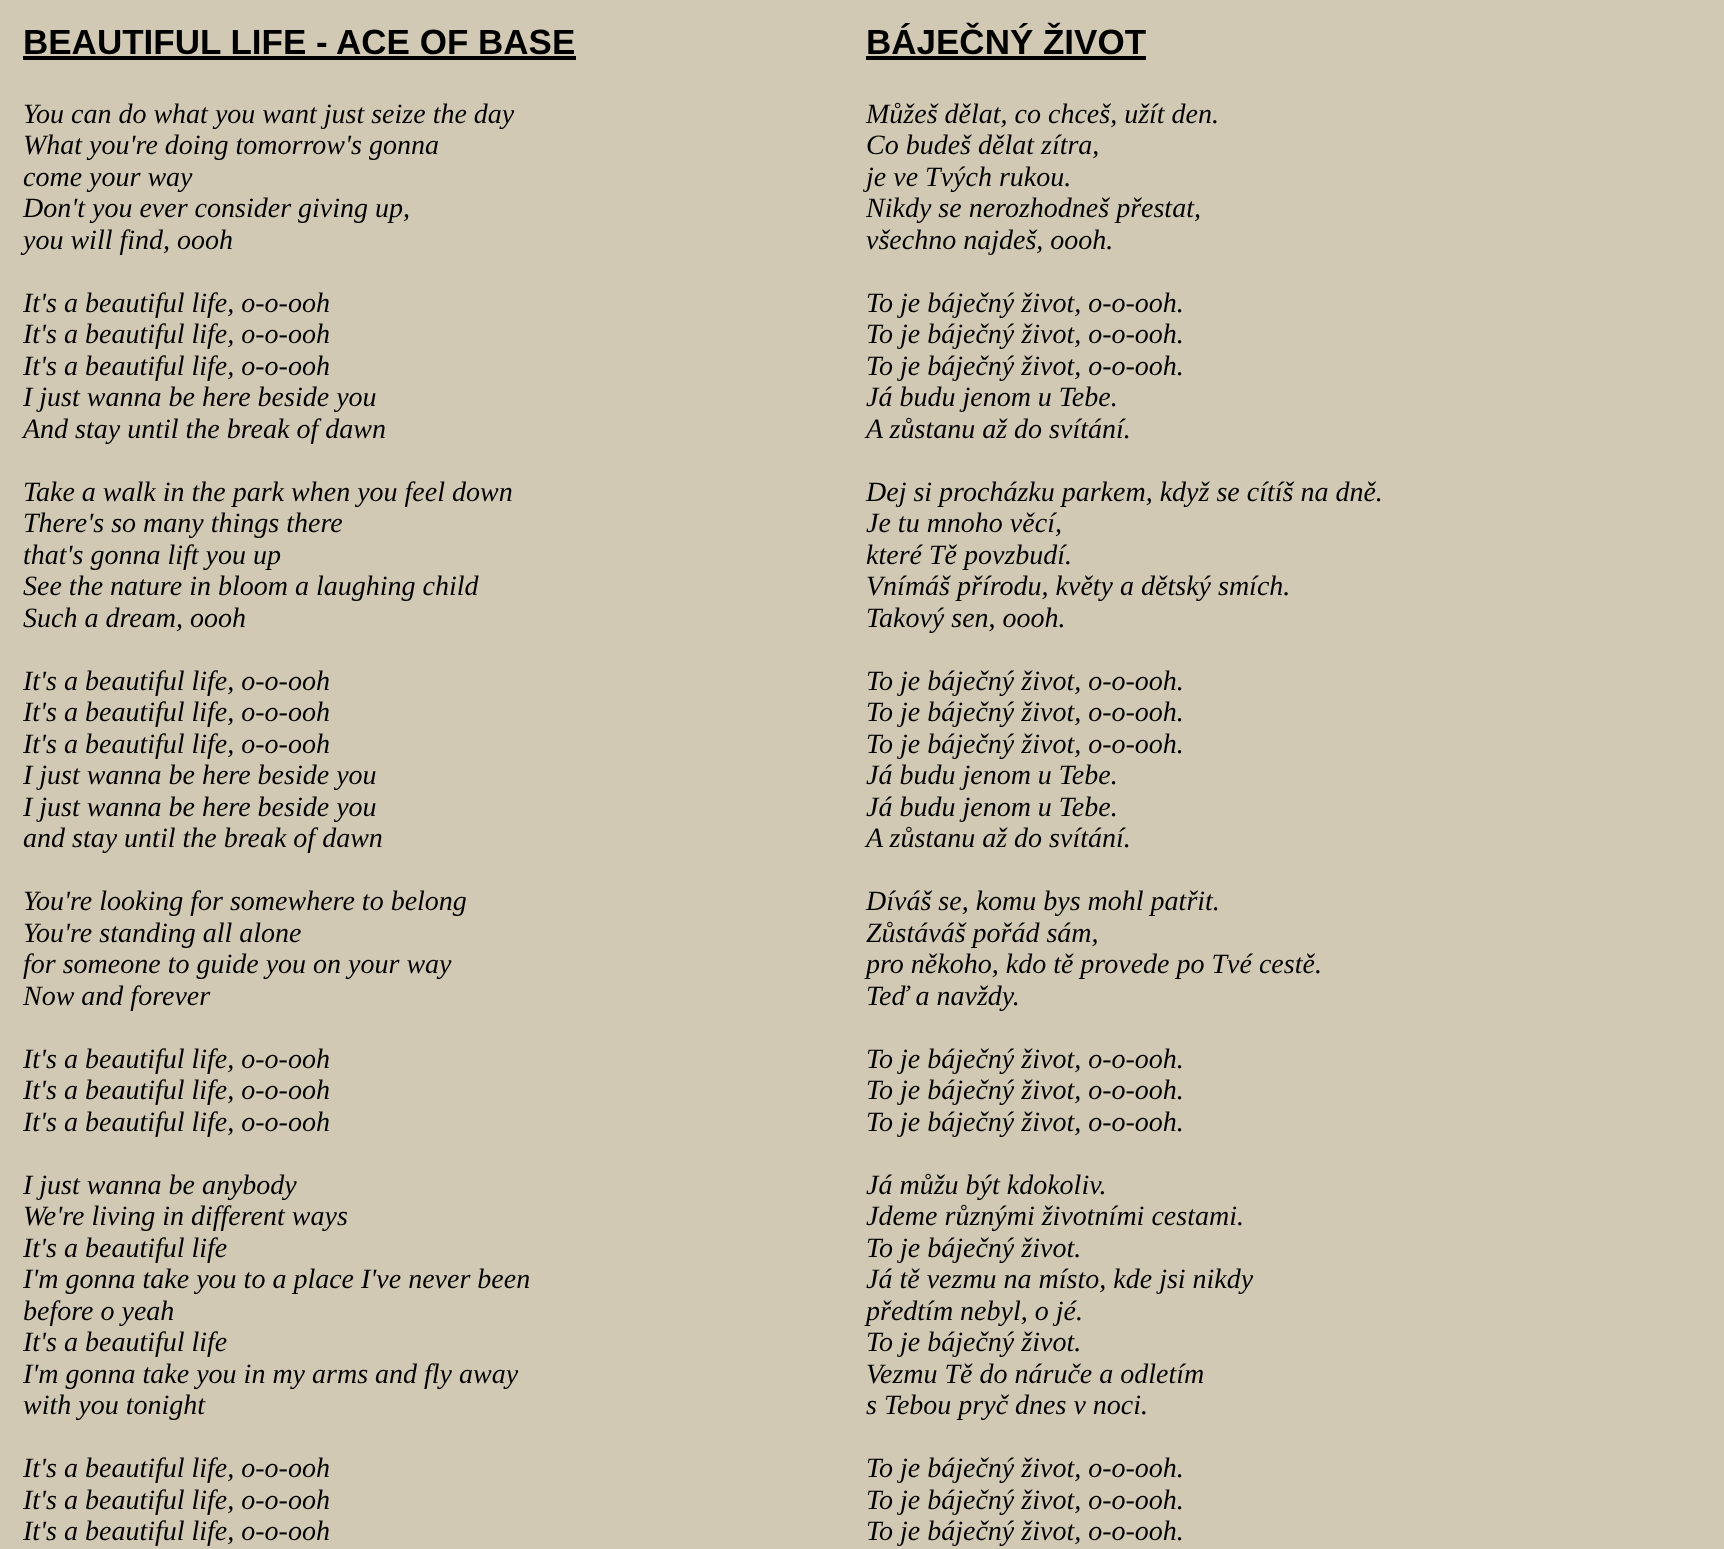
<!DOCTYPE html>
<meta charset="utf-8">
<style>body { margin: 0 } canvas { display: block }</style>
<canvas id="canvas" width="1724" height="1549"></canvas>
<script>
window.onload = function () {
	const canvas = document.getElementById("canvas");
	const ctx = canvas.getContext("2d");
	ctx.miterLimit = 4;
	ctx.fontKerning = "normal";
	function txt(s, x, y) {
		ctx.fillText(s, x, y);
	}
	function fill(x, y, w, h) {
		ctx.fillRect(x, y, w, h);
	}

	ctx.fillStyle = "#D1C9B4";
	fill(0, 0, 1724, 1549);
	ctx.fillStyle = "#000000";
	fill(23, 56, 553, 4);
	fill(866, 56, 280, 4);
	ctx.font = "bold 35px Liberation Sans";
	txt("BEAUTIFUL LIFE - ACE OF BASE", 23, 54);
	ctx.font = "italic 28px Liberation Serif";
	txt("You can do what you want just seize the day", 23, 123);
	txt("What you're doing tomorrow's gonna", 23, 154);
	txt("come your way", 23, 186);
	txt("Don't you ever consider giving up,", 23, 217);
	txt("you will find, oooh", 23, 249);
	txt("It's a beautiful life, o-o-ooh", 23, 312);
	txt("It's a beautiful life, o-o-ooh", 23, 343);
	txt("It's a beautiful life, o-o-ooh", 23, 375);
	txt("I just wanna be here beside you", 23, 406);
	txt("And stay until the break of dawn", 23, 438);
	txt("Take a walk in the park when you feel down", 23, 501);
	txt("There's so many things there", 23, 532);
	txt("that's gonna lift you up", 23, 564);
	txt("See the nature in bloom a laughing child", 23, 595);
	txt("Such a dream, oooh", 23, 627);
	txt("It's a beautiful life, o-o-ooh", 23, 690);
	txt("It's a beautiful life, o-o-ooh", 23, 721);
	txt("It's a beautiful life, o-o-ooh", 23, 753);
	txt("I just wanna be here beside you", 23, 784);
	txt("I just wanna be here beside you", 23, 816);
	txt("and stay until the break of dawn", 23, 847);
	txt("You're looking for somewhere to belong", 23, 910);
	txt("You're standing all alone", 23, 942);
	txt("for someone to guide you on your way", 23, 973);
	txt("Now and forever", 23, 1005);
	txt("It's a beautiful life, o-o-ooh", 23, 1068);
	txt("It's a beautiful life, o-o-ooh", 23, 1099);
	txt("It's a beautiful life, o-o-ooh", 23, 1131);
	txt("I just wanna be anybody", 23, 1194);
	txt("We're living in different ways", 23, 1225);
	txt("It's a beautiful life", 23, 1257);
	txt("I'm gonna take you to a place I've never been", 23, 1288);
	txt("before o yeah", 23, 1320);
	txt("It's a beautiful life", 23, 1351);
	txt("I'm gonna take you in my arms and fly away", 23, 1383);
	txt("with you tonight", 23, 1414);
	txt("It's a beautiful life, o-o-ooh", 23, 1477);
	txt("It's a beautiful life, o-o-ooh", 23, 1509);
	txt("It's a beautiful life, o-o-ooh", 23, 1540);
	ctx.font = "bold 35px Liberation Sans";
	txt("BÁJEČNÝ ŽIVOT", 866, 54);
	ctx.font = "italic 28px Liberation Serif";
	txt("Můžeš dělat, co chceš, užít den.", 866, 123);
	txt("Co budeš dělat zítra,", 866, 154);
	txt("je ve Tvých rukou.", 866, 186);
	txt("Nikdy se nerozhodneš přestat,", 866, 217);
	txt("všechno najdeš, oooh.", 866, 249);
	txt("To je báječný život, o-o-ooh.", 866, 312);
	txt("To je báječný život, o-o-ooh.", 866, 343);
	txt("To je báječný život, o-o-ooh.", 866, 375);
	txt("Já budu jenom u Tebe.", 866, 406);
	txt("A zůstanu až do svítání.", 866, 438);
	txt("Dej si procházku parkem, když se cítíš na dně.", 866, 501);
	txt("Je tu mnoho věcí,", 866, 532);
	txt("které Tě povzbudí.", 866, 564);
	txt("Vnímáš přírodu, květy a dětský smích.", 866, 595);
	txt("Takový sen, oooh.", 866, 627);
	txt("To je báječný život, o-o-ooh.", 866, 690);
	txt("To je báječný život, o-o-ooh.", 866, 721);
	txt("To je báječný život, o-o-ooh.", 866, 753);
	txt("Já budu jenom u Tebe.", 866, 784);
	txt("Já budu jenom u Tebe.", 866, 816);
	txt("A zůstanu až do svítání.", 866, 847);
	txt("Díváš se, komu bys mohl patřit.", 866, 910);
	txt("Zůstáváš pořád sám,", 866, 942);
	txt("pro někoho, kdo tě provede po Tvé cestě.", 866, 973);
	txt("Teď a navždy.", 866, 1005);
	txt("To je báječný život, o-o-ooh.", 866, 1068);
	txt("To je báječný život, o-o-ooh.", 866, 1099);
	txt("To je báječný život, o-o-ooh.", 866, 1131);
	txt("Já můžu být kdokoliv.", 866, 1194);
	txt("Jdeme různými životními cestami.", 866, 1225);
	txt("To je báječný život.", 866, 1257);
	txt("Já tě vezmu na místo, kde jsi nikdy", 866, 1288);
	txt("předtím nebyl, o jé.", 866, 1320);
	txt("To je báječný život.", 866, 1351);
	txt("Vezmu Tě do náruče a odletím", 866, 1383);
	txt("s Tebou pryč dnes v noci.", 866, 1414);
	txt("To je báječný život, o-o-ooh.", 866, 1477);
	txt("To je báječný život, o-o-ooh.", 866, 1509);
	txt("To je báječný život, o-o-ooh.", 866, 1540);
};
</script>
